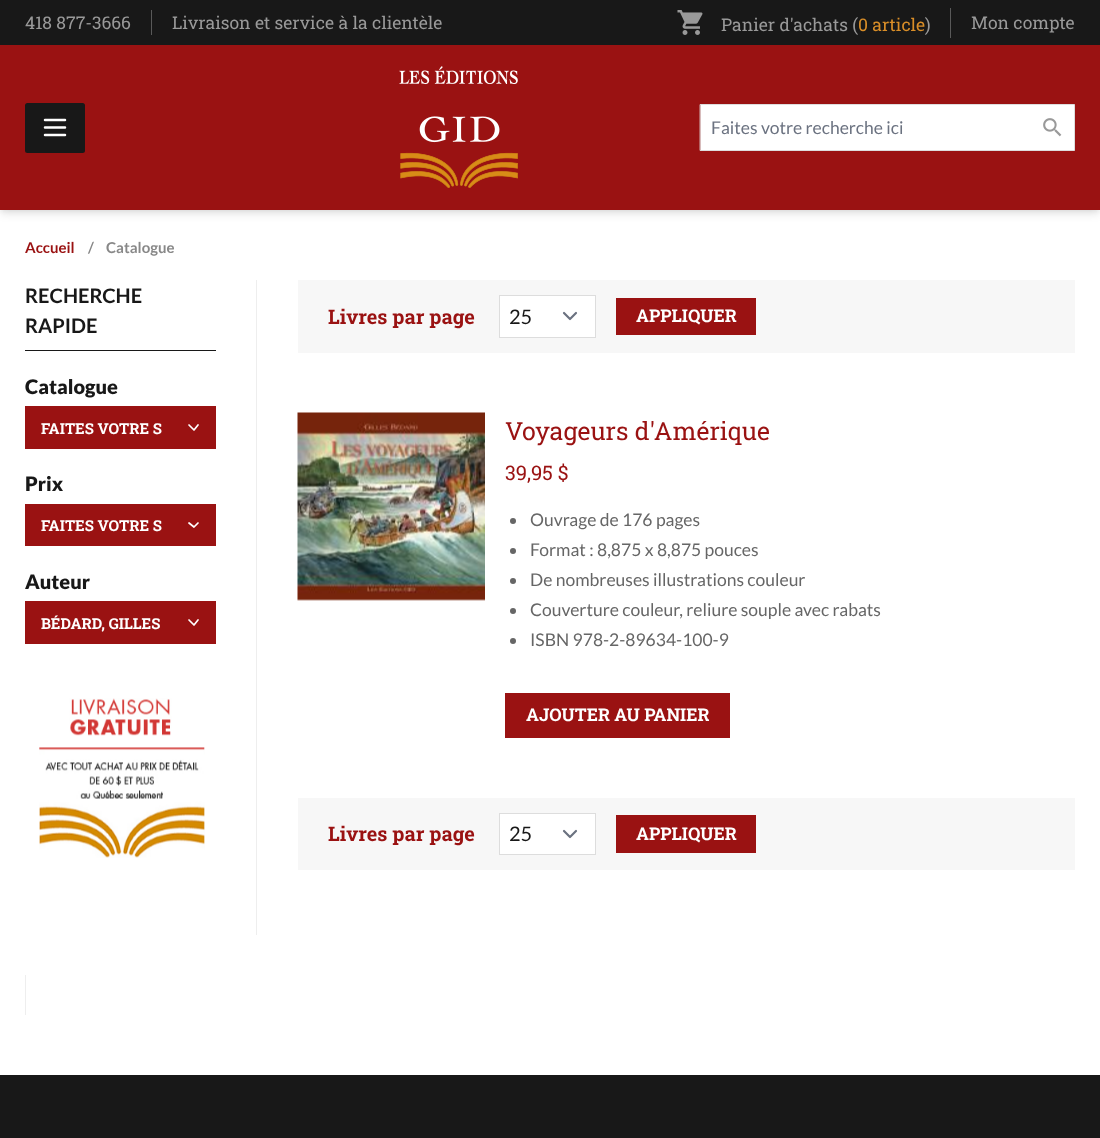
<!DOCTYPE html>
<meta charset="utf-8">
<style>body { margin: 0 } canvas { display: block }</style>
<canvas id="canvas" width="1100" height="1138"></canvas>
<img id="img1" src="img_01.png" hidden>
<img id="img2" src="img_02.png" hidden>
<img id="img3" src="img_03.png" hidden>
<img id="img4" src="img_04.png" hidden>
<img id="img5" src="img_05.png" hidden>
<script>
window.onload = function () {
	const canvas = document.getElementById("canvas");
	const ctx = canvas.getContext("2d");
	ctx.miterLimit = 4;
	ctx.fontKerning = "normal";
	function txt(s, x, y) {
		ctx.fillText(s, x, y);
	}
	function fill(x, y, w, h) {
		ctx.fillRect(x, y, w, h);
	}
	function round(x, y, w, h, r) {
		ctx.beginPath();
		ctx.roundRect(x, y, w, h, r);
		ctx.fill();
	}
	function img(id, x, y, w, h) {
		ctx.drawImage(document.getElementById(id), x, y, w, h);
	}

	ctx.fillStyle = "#FFFFFF";
	fill(0, 0, 1100, 1138);
	ctx.fillStyle = "rgba(0, 0, 0, 0.06)";
	ctx.filter = "blur(2.5px)";
	ctx.beginPath();
	ctx.rect(1, 4, 1098, 207);
	ctx.fill();
	ctx.filter = "none";
	ctx.fillStyle = "rgba(0, 0, 0, 0.1)";
	ctx.filter = "blur(4px)";
	ctx.beginPath();
	ctx.rect(1, 6, 1098, 208);
	ctx.fill();
	ctx.filter = "none";
	ctx.fillStyle = "#9A1212";
	fill(0, 45, 1100, 165);
	ctx.fillStyle = "#181818";
	fill(0, 0, 1100, 45);
	ctx.fillStyle = "#595959";
	fill(151, 10, 1, 25);
	fill(950, 8, 1, 30);
	img("img1", 677, 10, 26, 25);
	ctx.fillStyle = "#181818";
	round(25, 103, 60, 50, 2.5);
	ctx.beginPath();
	ctx.moveTo(45, 120);
	ctx.lineTo(65, 120);
	ctx.moveTo(45, 127.5);
	ctx.lineTo(65, 127.5);
	ctx.moveTo(45, 135);
	ctx.lineTo(65, 135);
	ctx.strokeStyle = "#FFFFFF";
	ctx.lineWidth = 2.5;
	ctx.lineCap = "round";
	ctx.lineJoin = "round";
	ctx.stroke();
	img("img2", 399, 66, 119, 122);
	ctx.fillStyle = "#FFFFFF";
	ctx.beginPath();
	ctx.rect(700.5, 104.5, 374, 46);
	ctx.fill();
	ctx.strokeStyle = "#DDDDDD";
	ctx.lineWidth = 1;
	ctx.lineJoin = "miter";
	ctx.stroke();
	img("img3", 1043, 118, 19, 19);
	ctx.fillStyle = "#EEEEEE";
	fill(256, 280, 1, 655);
	ctx.fillStyle = "#181818";
	fill(25, 350, 191, 1);
	ctx.fillStyle = "#9A1212";
	fill(25, 406, 191, 43);
	ctx.beginPath();
	ctx.moveTo(189, 425);
	ctx.lineTo(194, 430);
	ctx.lineTo(198, 425);
	ctx.strokeStyle = "#FFFFFF";
	ctx.lineWidth = 1.7;
	ctx.lineJoin = "round";
	ctx.stroke();
	fill(25, 504, 191, 42);
	ctx.beginPath();
	ctx.moveTo(189, 523);
	ctx.lineTo(194, 527);
	ctx.lineTo(198, 523);
	ctx.stroke();
	fill(25, 601, 191, 43);
	ctx.beginPath();
	ctx.moveTo(189, 620);
	ctx.lineTo(194, 625);
	ctx.lineTo(198, 620);
	ctx.stroke();
	img("img4", 39, 698, 166, 160);
	ctx.fillStyle = "#F7F7F7";
	fill(298, 280, 777, 73);
	ctx.fillStyle = "#FFFFFF";
	fill(500, 296, 95, 41);
	ctx.beginPath();
	ctx.moveTo(564, 313);
	ctx.lineTo(570, 319);
	ctx.lineTo(576, 313);
	ctx.strokeStyle = "#6B7280";
	ctx.lineWidth = 2.2;
	ctx.stroke();
	ctx.strokeStyle = "#DDDDDD";
	ctx.lineWidth = 1;
	ctx.lineJoin = "miter";
	ctx.strokeRect(499.5, 295.5, 96, 42);
	ctx.fillStyle = "#9A1212";
	fill(616, 298, 140, 37);
	img("img5", 297, 412, 188, 189);
	ctx.fillStyle = "#666666";
	ctx.beginPath();
	ctx.arc(513, 521, 3, 0, Math.PI * 2);
	ctx.fill();
	ctx.beginPath();
	ctx.arc(513, 551, 3, 0, Math.PI * 2);
	ctx.fill();
	ctx.beginPath();
	ctx.arc(513, 581, 3, 0, Math.PI * 2);
	ctx.fill();
	ctx.beginPath();
	ctx.arc(513, 611, 3, 0, Math.PI * 2);
	ctx.fill();
	ctx.beginPath();
	ctx.arc(513, 641, 3, 0, Math.PI * 2);
	ctx.fill();
	ctx.fillStyle = "#9A1212";
	fill(505, 693, 225, 45);
	ctx.fillStyle = "#F7F7F7";
	fill(298, 798, 777, 72);
	ctx.fillStyle = "#FFFFFF";
	fill(500, 814, 95, 40);
	ctx.beginPath();
	ctx.moveTo(564, 831);
	ctx.lineTo(570, 837);
	ctx.lineTo(576, 831);
	ctx.strokeStyle = "#6B7280";
	ctx.lineWidth = 2.2;
	ctx.lineJoin = "round";
	ctx.stroke();
	ctx.strokeStyle = "#DDDDDD";
	ctx.lineWidth = 1;
	ctx.lineJoin = "miter";
	ctx.strokeRect(499.5, 813.5, 96, 41);
	ctx.fillStyle = "#9A1212";
	fill(616, 815, 140, 38);
	ctx.fillStyle = "#EEEEEE";
	fill(25, 975, 1, 40);
	ctx.fillStyle = "#181818";
	fill(0, 1075, 1100, 63);
	ctx.font = "17.5px Roboto Slab";
	ctx.fillStyle = "#999999";
	txt("418 877-3666", 25, 29);
	txt("Livraison et service à la clientèle", 172, 29);
	txt("Panier d'achats (", 721, 31);
	ctx.fillStyle = "#D98E28";
	txt("0 article", 858, 31);
	ctx.fillStyle = "#999999";
	txt(")", 925, 31);
	txt("Mon compte", 971, 29);
	ctx.font = "17.5px Lato";
	ctx.fillStyle = "#6B7280";
	txt("Faites votre recherche ici", 711, 134);
	ctx.font = "bold 15px Lato";
	ctx.fillStyle = "#9A1212";
	txt("Accueil", 25, 253);
	ctx.fillStyle = "#888888";
	txt("/", 88, 253);
	txt("Catalogue", 106, 253);
	ctx.font = "bold 20px Lato";
	ctx.fillStyle = "#181818";
	txt("RECHERCHE", 25, 303);
	txt("RAPIDE", 25, 333);
	ctx.font = "900 20px Lato";
	txt("Catalogue", 25, 394);
	ctx.font = "bold 15px Roboto Slab";
	ctx.fillStyle = "#FFFFFF";
	txt("FAITES VOTRE S", 41, 434);
	ctx.font = "900 20px Lato";
	ctx.fillStyle = "#181818";
	txt("Prix", 25, 491);
	ctx.font = "bold 15px Roboto Slab";
	ctx.fillStyle = "#FFFFFF";
	txt("FAITES VOTRE S", 41, 531);
	ctx.font = "900 20px Lato";
	ctx.fillStyle = "#181818";
	txt("Auteur", 25, 589);
	ctx.font = "bold 15px Roboto Slab";
	ctx.fillStyle = "#FFFFFF";
	txt("BÉDARD, GILLES", 41, 629);
	ctx.font = "bold 20px Roboto Slab";
	ctx.fillStyle = "#9A1212";
	txt("Livres par page", 328, 324);
	ctx.font = "20px Lato";
	ctx.fillStyle = "#181818";
	txt("25", 509, 324);
	ctx.font = "bold 17.5px Roboto Slab";
	ctx.fillStyle = "#FFFFFF";
	txt("APPLIQUER", 636, 322);
	ctx.font = "25px Roboto Slab";
	ctx.fillStyle = "#9A1212";
	txt("Voyageurs d'Amérique", 505, 440);
	ctx.font = "20px Roboto Slab";
	txt("39,95 $", 505, 480);
	ctx.font = "17.5px Lato";
	ctx.fillStyle = "#666666";
	txt("Ouvrage de 176 pages", 530, 526);
	txt("Format : 8,875 x 8,875 pouces", 530, 556);
	txt("De nombreuses illustrations couleur", 530, 586);
	txt("Couverture couleur, reliure souple avec rabats", 530, 616);
	txt("ISBN 978-2-89634-100-9", 530, 646);
	ctx.font = "bold 17.5px Roboto Slab";
	ctx.fillStyle = "#FFFFFF";
	txt("AJOUTER AU PANIER", 526, 721);
	ctx.font = "bold 20px Roboto Slab";
	ctx.fillStyle = "#9A1212";
	txt("Livres par page", 328, 841);
	ctx.font = "20px Lato";
	ctx.fillStyle = "#181818";
	txt("25", 509, 841);
	ctx.font = "bold 17.5px Roboto Slab";
	ctx.fillStyle = "#FFFFFF";
	txt("APPLIQUER", 636, 840);
};
</script>
